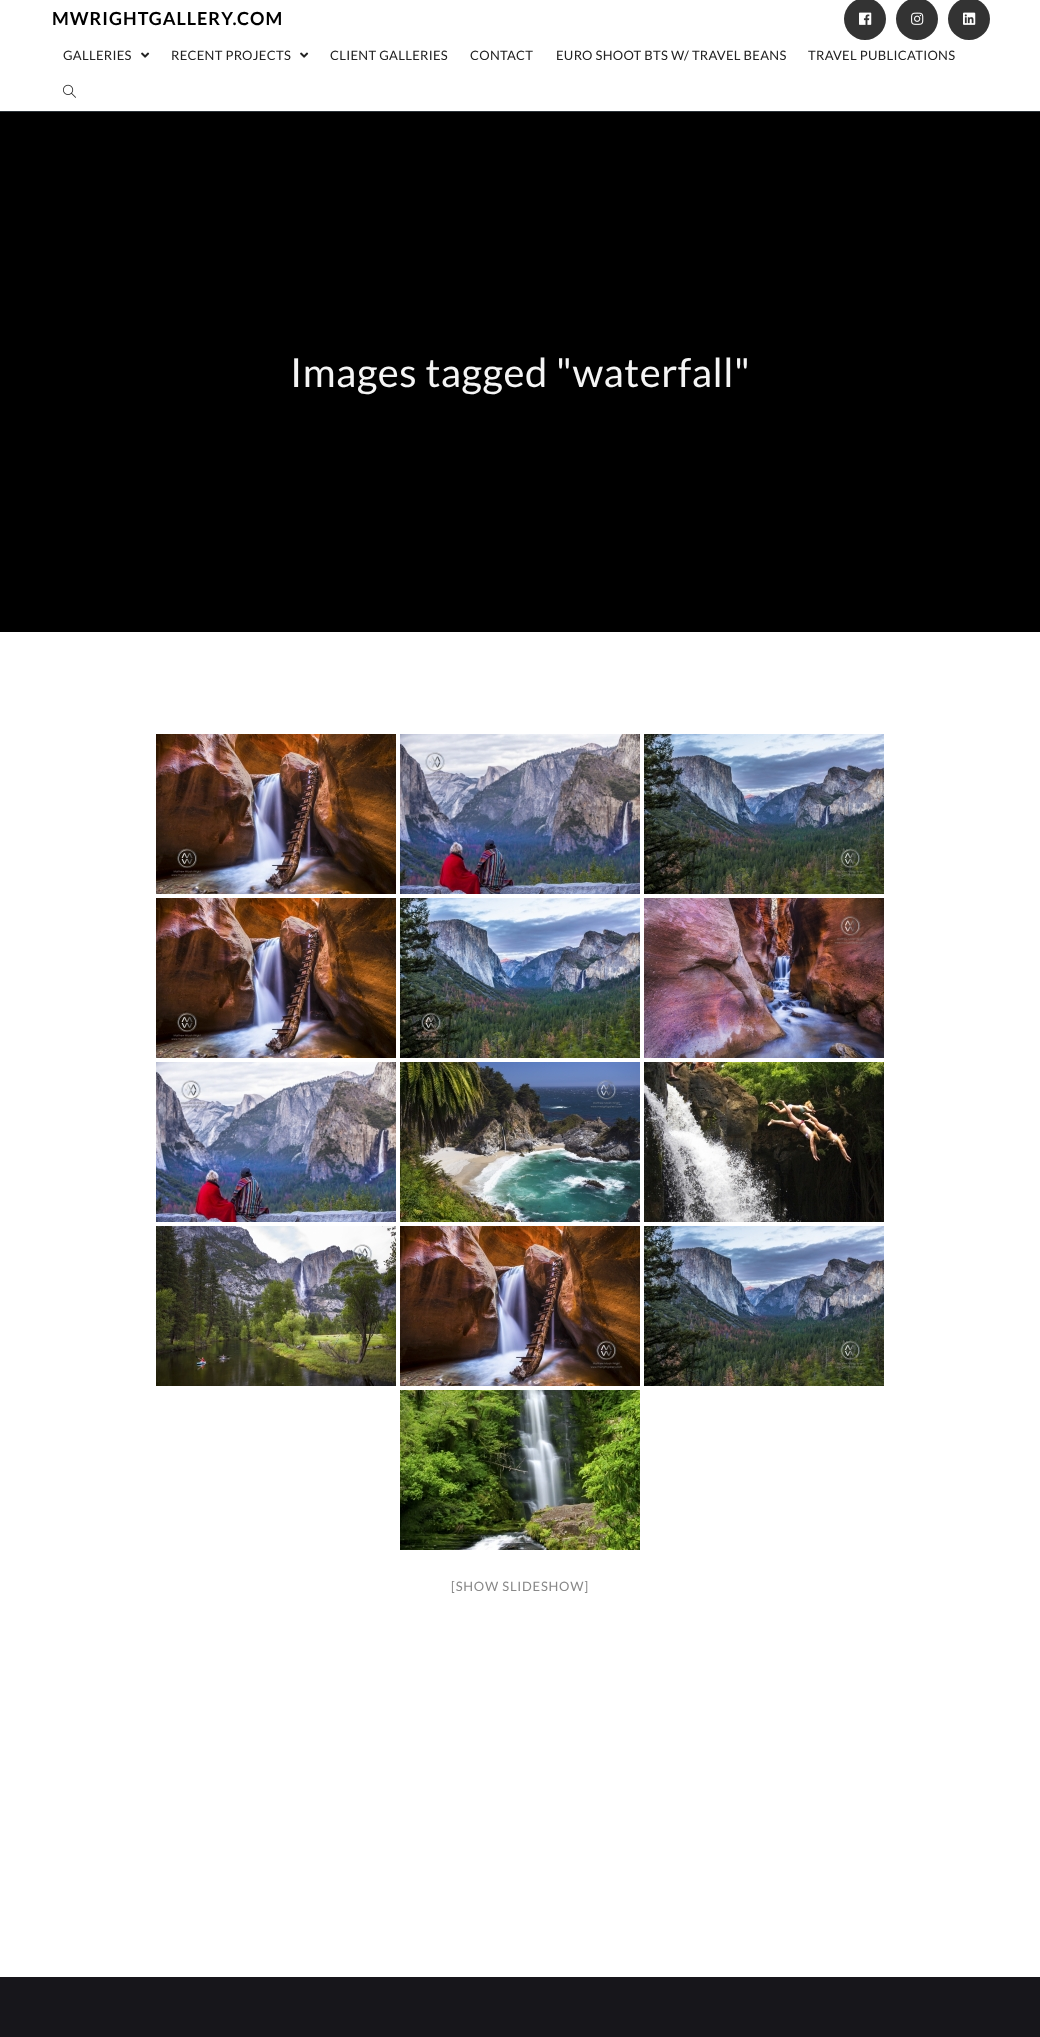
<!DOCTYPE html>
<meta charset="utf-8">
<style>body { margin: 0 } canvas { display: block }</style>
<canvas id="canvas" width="1040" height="2037"></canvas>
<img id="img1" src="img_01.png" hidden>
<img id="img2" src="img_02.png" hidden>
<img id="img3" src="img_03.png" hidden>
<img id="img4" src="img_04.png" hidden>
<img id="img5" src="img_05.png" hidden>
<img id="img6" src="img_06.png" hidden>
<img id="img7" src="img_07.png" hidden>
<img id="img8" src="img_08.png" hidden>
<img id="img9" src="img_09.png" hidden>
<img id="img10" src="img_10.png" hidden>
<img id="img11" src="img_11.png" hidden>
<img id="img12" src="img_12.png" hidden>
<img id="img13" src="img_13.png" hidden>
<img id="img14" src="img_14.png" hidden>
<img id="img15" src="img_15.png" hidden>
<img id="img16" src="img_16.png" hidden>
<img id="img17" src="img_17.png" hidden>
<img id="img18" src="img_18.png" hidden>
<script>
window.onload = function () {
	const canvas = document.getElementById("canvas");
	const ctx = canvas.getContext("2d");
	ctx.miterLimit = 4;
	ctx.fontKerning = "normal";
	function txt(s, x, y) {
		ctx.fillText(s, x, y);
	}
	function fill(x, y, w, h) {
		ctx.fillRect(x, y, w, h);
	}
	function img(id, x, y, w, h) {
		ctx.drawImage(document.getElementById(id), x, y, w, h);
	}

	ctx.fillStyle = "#FFFFFF";
	fill(0, 0, 1040, 2037);
	ctx.fillStyle = "#2A3137";
	fill(0, 111, 1040, 1);
	ctx.fillStyle = "#333333";
	ctx.beginPath();
	ctx.arc(865, 19, 21, 0, Math.PI * 2);
	ctx.fill();
	img("img1", 859, 12, 13, 13);
	ctx.beginPath();
	ctx.arc(917, 19, 21, 0, Math.PI * 2);
	ctx.fill();
	img("img2", 911, 12, 13, 13);
	ctx.beginPath();
	ctx.arc(969, 19, 21, 0, Math.PI * 2);
	ctx.fill();
	img("img3", 963, 12, 13, 13);
	img("img4", 141, 52, 9, 6);
	img("img4", 300, 52, 9, 6);
	img("img5", 63, 84, 13, 14);
	ctx.fillStyle = "#000000";
	fill(0, 112, 1040, 520);
	img("img6", 156, 734, 240, 160);
	img("img7", 400, 734, 240, 160);
	img("img8", 644, 734, 240, 160);
	img("img9", 156, 898, 240, 160);
	img("img10", 400, 898, 240, 160);
	img("img11", 644, 898, 240, 160);
	img("img12", 156, 1062, 240, 160);
	img("img13", 400, 1062, 240, 160);
	img("img14", 644, 1062, 240, 160);
	img("img15", 156, 1226, 240, 160);
	img("img16", 400, 1226, 240, 160);
	img("img17", 644, 1226, 240, 160);
	img("img18", 400, 1390, 240, 160);
	ctx.fillStyle = "#17161B";
	fill(0, 1977, 1040, 60);
	ctx.letterSpacing = "1px";
	ctx.font = "bold 18px Lato";
	ctx.fillStyle = "#000000";
	txt("MWRIGHTGALLERY.COM", 52, 25);
	ctx.letterSpacing = "0.3px";
	ctx.font = "13px Lato";
	ctx.fillStyle = "#222222";
	txt("GALLERIES", 63, 60);
	txt("RECENT PROJECTS", 171, 60);
	txt("CLIENT GALLERIES", 330, 60);
	txt("CONTACT", 470, 60);
	txt("EURO SHOOT BTS W/ TRAVEL BEANS", 556, 60);
	txt("TRAVEL PUBLICATIONS", 808, 60);
	ctx.letterSpacing = "0.5px";
	ctx.font = "40px Lato";
	ctx.fillStyle = "#F5F5F5";
	txt("Images tagged \"waterfall\"", 290, 387);
	ctx.letterSpacing = "0.75px";
	ctx.font = "13px Lato";
	ctx.fillStyle = "#888888";
	txt("[SHOW SLIDESHOW]", 451, 1591);
};
</script>
